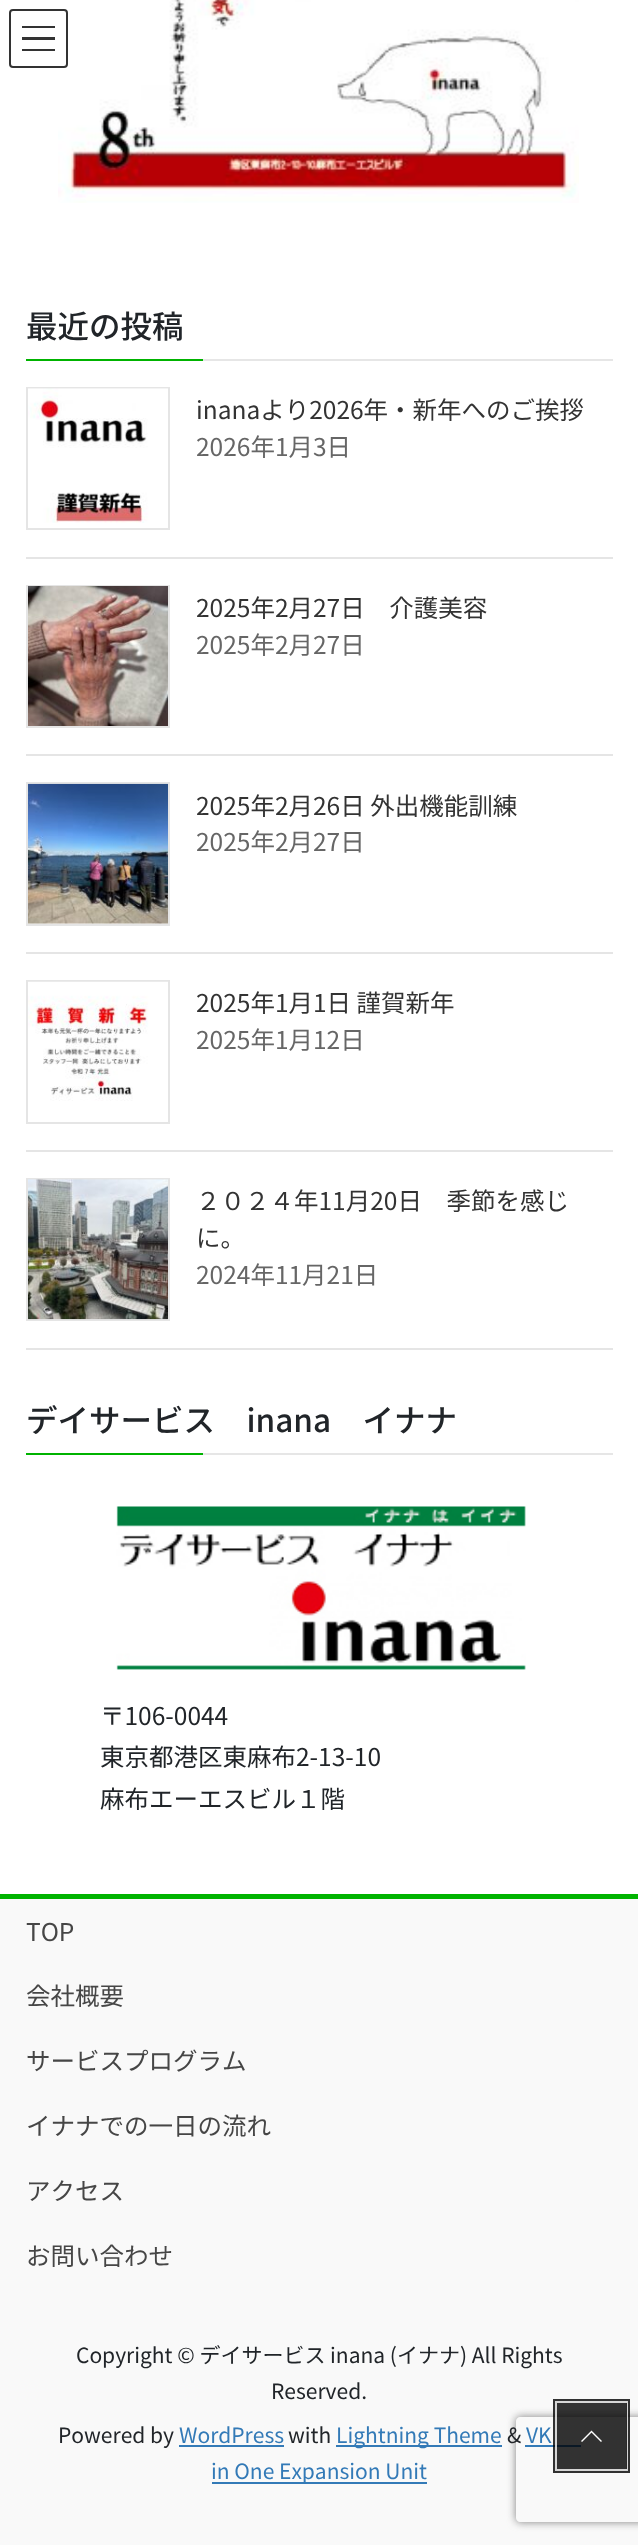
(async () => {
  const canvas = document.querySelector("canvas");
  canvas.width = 638;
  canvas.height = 2545;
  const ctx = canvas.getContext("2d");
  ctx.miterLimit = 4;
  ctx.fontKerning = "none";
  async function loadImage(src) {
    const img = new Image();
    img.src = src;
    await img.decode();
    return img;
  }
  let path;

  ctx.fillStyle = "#ffffff";
  ctx.fillRect(0, 0, 638, 2545);
  for (const [x, y, w, h, color] of [
    [22, 26, 33, 2, "#333333"],
    [22, 37, 33, 3, "#333333"],
    [22, 49, 33, 2, "#333333"],
  ]) {
    ctx.fillStyle = color;
    ctx.fillRect(x, y, w, h);
  }
  ctx.drawImage(await loadImage("img/1.png"), 58, 0, 521, 203);
  ctx.beginPath();
  ctx.roundRect(10, 10, 57, 57, 3);
  ctx.strokeStyle = "#333333";
  ctx.lineWidth = 2;
  ctx.stroke();
  for (const [x, y, w, h, color] of [
    [203, 359, 410, 2, "#e6e6e6"],
    [26, 359, 177, 2, "#00b300"],
    [26, 557, 587, 2, "#e5e5e5"],
  ]) {
    ctx.fillStyle = color;
    ctx.fillRect(x, y, w, h);
  }
  ctx.strokeStyle = "#e5e5e5";
  ctx.strokeRect(27, 388, 142, 141);
  ctx.drawImage(await loadImage("img/2.png"), 28, 388, 140, 135);
  ctx.fillRect(26, 754, 587, 2);
  ctx.strokeRect(27, 586, 142, 141);
  ctx.drawImage(await loadImage("img/3.png"), 28, 586, 140, 140);
  ctx.fillRect(26, 952, 587, 2);
  ctx.strokeRect(27, 783, 142, 142);
  ctx.drawImage(await loadImage("img/4.png"), 28, 783, 140, 141);
  ctx.fillRect(26, 1150, 587, 2);
  ctx.strokeRect(27, 981, 142, 142);
  ctx.drawImage(await loadImage("img/5.png"), 28, 981, 140, 120);
  ctx.fillRect(26, 1348, 587, 2);
  ctx.strokeRect(27, 1179, 142, 141);
  ctx.drawImage(await loadImage("img/6.png"), 28, 1179, 140, 141);
  ctx.fillStyle = "#e6e6e6";
  ctx.fillRect(203, 1453, 410, 2);
  ctx.fillStyle = "#00b300";
  ctx.fillRect(26, 1453, 177, 2);
  ctx.drawImage(await loadImage("img/7.png"), 116, 1506, 410, 164);
  for (const [x, y, w, h, color] of [
    [0, 1899, 638, 646, "#f9f9f9"],
    [0, 1894, 638, 5, "#00b300"],
    [179, 2445, 105, 2, "#337ab7"],
    [336, 2445, 166, 2, "#337ab7"],
    [525, 2445, 56, 2, "#337ab7"],
    [212, 2482, 215, 2, "#337ab7"],
  ]) {
    ctx.fillStyle = color;
    ctx.fillRect(x, y, w, h);
  }
  ctx.save();
  path = new Path2D("M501 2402H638V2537H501ZM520 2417H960C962 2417 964 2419 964 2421V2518C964 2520 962 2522 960 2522H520C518 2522 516 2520 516 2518V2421C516 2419 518 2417 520 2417Z");
  ctx.clip(path, "evenodd");
  ctx.fillStyle = "#808080";
  ctx.filter = "blur(4.5px)";
  ctx.beginPath();
  ctx.roundRect(516, 2417, 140, 105, 4);
  ctx.fill();
  ctx.filter = "none";
  ctx.restore();
  ctx.strokeStyle = "rgba(0, 0, 0, 0.8)";
  ctx.lineWidth = 4;
  ctx.strokeRect(555, 2401, 73, 70);
  ctx.strokeStyle = "rgba(255, 255, 255, 0.8)";
  ctx.lineWidth = 2;
  ctx.strokeRect(556, 2402, 71, 68);
  ctx.fillStyle = "rgba(0, 0, 0, 0.8)";
  ctx.fillRect(557, 2403, 70, 66);
  ctx.fillStyle = "#ffffff";
  path = new Path2D("M602 2441L601 2442L591.5 2432.5L582 2442L581 2441L591.5 2430.5Z");
  ctx.fill(path);
  ctx.font = "500 31.5px Noto Sans JP";
  ctx.fillStyle = "#212529";
  ctx.fillText("最近の投稿", 26, 338);
  ctx.font = "24.5px Noto Sans JP";
  ctx.fillStyle = "#333333";
  ctx.fillText("inanaより2026年・新年へのご挨拶", 196, 419);
  ctx.fillStyle = "#666666";
  ctx.fillText("2026年1月3日", 196, 456);
  ctx.fillStyle = "#333333";
  ctx.fillText("2025年2月27日　介護美容", 196, 617);
  ctx.fillStyle = "#666666";
  ctx.fillText("2025年2月27日", 196, 654);
  ctx.fillStyle = "#333333";
  ctx.fillText("2025年2月26日 外出機能訓練", 196, 815);
  ctx.fillStyle = "#666666";
  ctx.fillText("2025年2月27日", 196, 851);
  ctx.fillStyle = "#333333";
  ctx.fillText("2025年1月1日 謹賀新年", 196, 1012);
  ctx.fillStyle = "#666666";
  ctx.fillText("2025年1月12日", 196, 1049);
  ctx.fillStyle = "#333333";
  ctx.fillText("２０２４年11月20日　季節を感じ", 196, 1210);
  ctx.fillText("に。", 196, 1247);
  ctx.fillStyle = "#666666";
  ctx.fillText("2024年11月21日", 196, 1284);
  ctx.font = "500 31.5px Noto Sans JP";
  ctx.fillStyle = "#212529";
  ctx.fillText("デイサービス　inana　イナナ", 26, 1432);
  ctx.font = "24.5px Noto Sans JP";
  for (const [text, x, y] of [
    ["〒106-0044", 100, 1725],
    ["東京都港区東麻布2-13-10", 100, 1766],
    ["麻布エーエスビル１階", 100, 1808],
  ]) {
    ctx.fillText(text, x, y);
  }
  ctx.fillStyle = "#464646";
  for (const [text, x, y] of [
    ["TOP", 26, 1941],
    ["会社概要", 26, 2005],
    ["サービスプログラム", 26, 2070],
    ["イナナでの一日の流れ", 26, 2135],
    ["アクセス", 26, 2200],
    ["お問い合わせ", 26, 2265],
  ]) {
    ctx.fillText(text, x, y);
  }
  ctx.font = "21px Noto Sans JP";
  ctx.fillStyle = "#212529";
  for (const [text, x, y] of [
    ["Copyright © デイサービス inana (イナナ) All Rights", 76, 2363],
    ["Reserved.", 271, 2399],
    ["Powered by", 58, 2443],
  ]) {
    ctx.fillText(text, x, y);
  }
  ctx.fillStyle = "#337ab7";
  ctx.fillText("WordPress", 179, 2443);
  ctx.fillStyle = "#212529";
  ctx.fillText("with", 288, 2443);
  ctx.fillStyle = "#337ab7";
  ctx.fillText("Lightning Theme", 336, 2443);
  ctx.fillStyle = "#212529";
  ctx.fillText("&", 507, 2443);
  ctx.fillStyle = "#337ab7";
  ctx.fillText("VK", 526, 2443);
  ctx.fillText("in One Expansion Unit", 211, 2479);
})();
